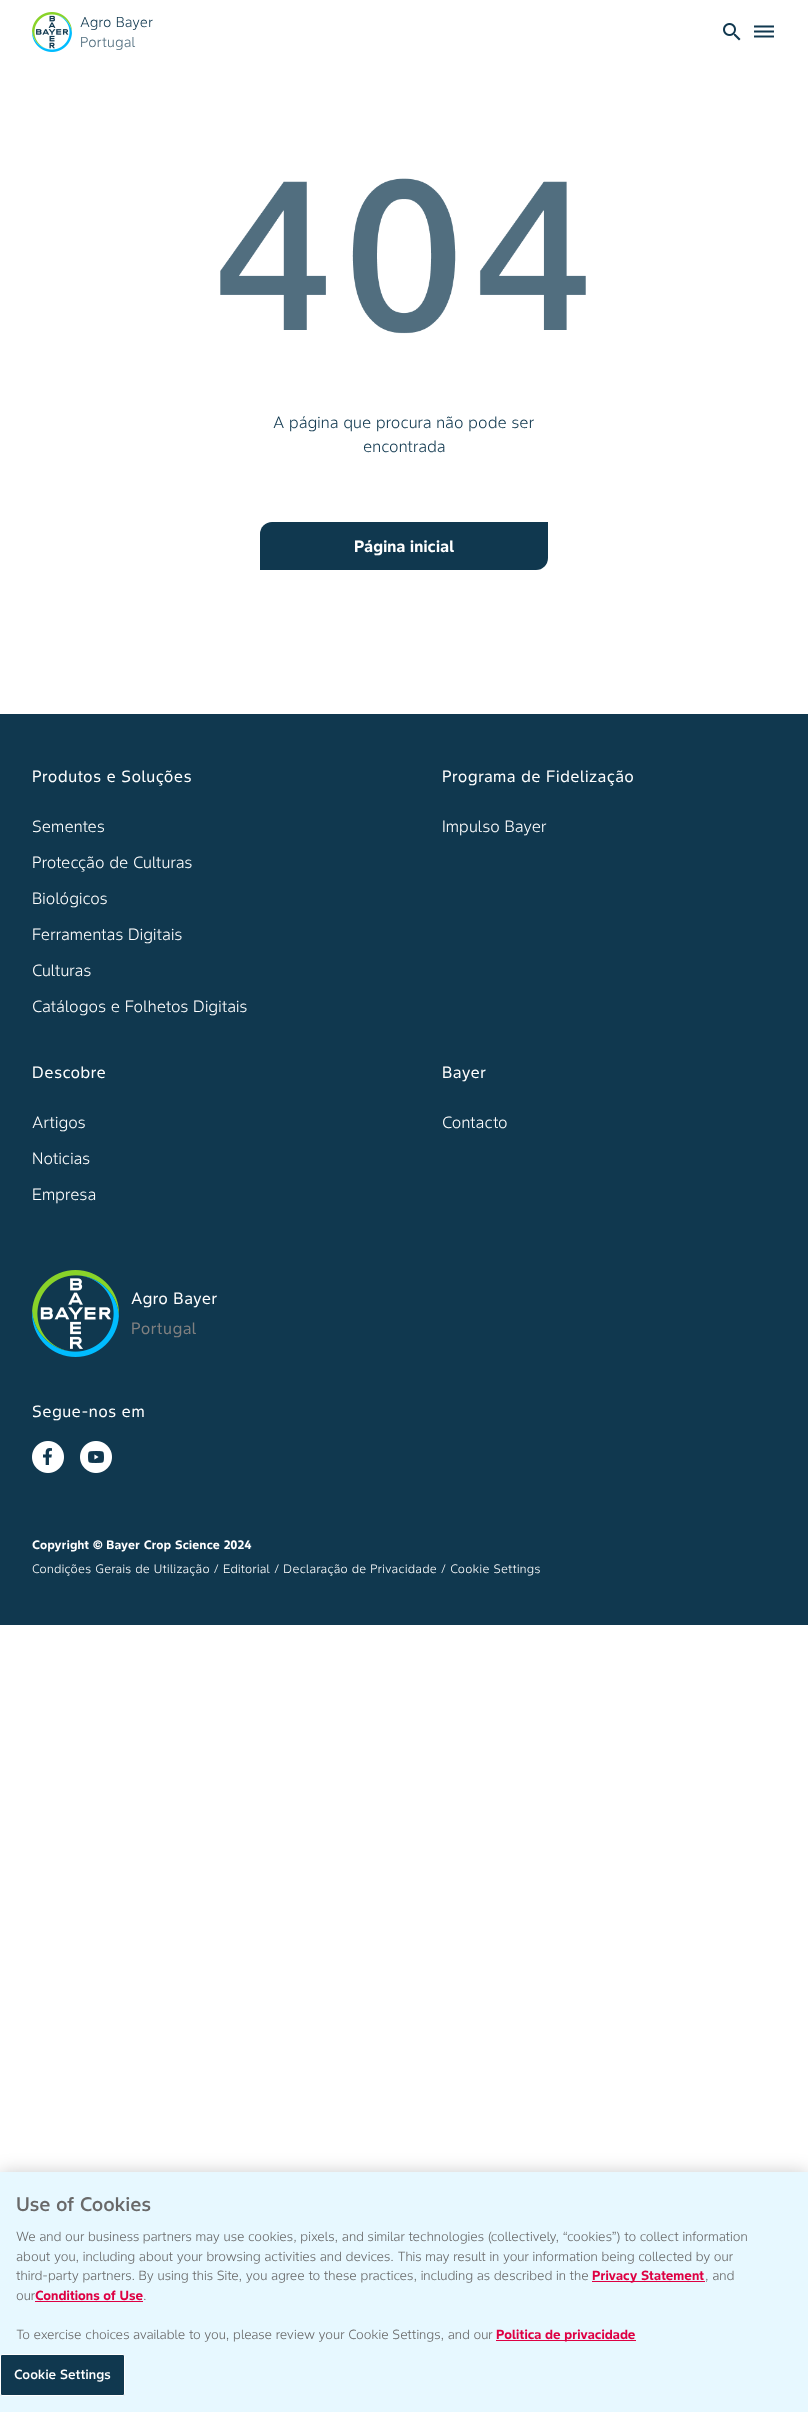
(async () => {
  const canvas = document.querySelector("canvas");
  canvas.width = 808;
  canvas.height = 2412;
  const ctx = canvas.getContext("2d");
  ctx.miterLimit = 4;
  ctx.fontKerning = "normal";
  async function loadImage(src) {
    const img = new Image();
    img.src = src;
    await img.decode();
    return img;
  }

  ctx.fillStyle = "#ffffff";
  ctx.fillRect(0, 0, 808, 2412);
  ctx.drawImage(await loadImage("img/1.png"), 32, 12, 40, 40);
  ctx.drawImage(await loadImage("img/2.png"), 723, 23, 18, 18);
  ctx.drawImage(await loadImage("img/3.png"), 754, 25, 20, 13);
  ctx.drawImage(await loadImage("img/4.png"), 220, 178, 366, 156);
  ctx.fillStyle = "#10384f";
  ctx.beginPath();
  ctx.roundRect(260, 522, 288, 48, [12, 0, 12, 0]);
  ctx.fill();
  ctx.fillRect(0, 714, 808, 911);
  ctx.drawImage(await loadImage("img/5.png"), 32, 1270, 87, 87);
  ctx.drawImage(await loadImage("img/6.png"), 32, 1441, 32, 32);
  ctx.drawImage(await loadImage("img/7.png"), 80, 1441, 32, 32);
  ctx.fillStyle = "rgba(0, 0, 0, 0.2)";
  ctx.filter = "blur(9px)";
  ctx.beginPath();
  ctx.rect(0, 2172, 808, 240);
  ctx.fill();
  ctx.filter = "none";
  for (const [x, y, w, h, color] of [
    [0, 2172, 808, 240, "#e7f8ff"],
    [592, 2281, 113, 1, "#de0043"],
    [35, 2301, 108, 1, "#de0043"],
    [496, 2340, 140, 1, "#de0043"],
  ]) {
    ctx.fillStyle = color;
    ctx.fillRect(x, y, w, h);
  }
  ctx.fillStyle = "#10384f";
  ctx.beginPath();
  ctx.roundRect(0.5, 2354.5, 124, 41, 1.5);
  ctx.fill();
  ctx.strokeStyle = "#ffffff";
  ctx.stroke();
  ctx.letterSpacing = "0.25px";
  ctx.font = "300 14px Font";
  ctx.fillText("Agro Bayer", 80, 27);
  ctx.fillStyle = "#516e7f";
  ctx.fillText("Portugal", 80, 47);
  ctx.letterSpacing = "0.15px";
  ctx.font = "300 16px Font";
  ctx.fillStyle = "#10384f";
  ctx.fillText("A página que procura não pode ser", 273, 428);
  ctx.fillText("encontrada", 363, 452);
  ctx.font = "bold 16px Font";
  ctx.fillStyle = "#ffffff";
  ctx.fillText("Página inicial", 354, 552);
  ctx.letterSpacing = "0.5px";
  ctx.font = "16px Font";
  ctx.fillText("Produtos e Soluções", 32, 782);
  ctx.letterSpacing = "0.15px";
  ctx.font = "300 16px Font";
  for (const [text, x, y] of [
    ["Sementes", 32, 832],
    ["Protecção de Culturas", 32, 868],
    ["Biológicos", 32, 904],
    ["Ferramentas Digitais", 32, 940],
    ["Culturas", 32, 976],
    ["Catálogos e Folhetos Digitais", 32, 1012],
  ]) {
    ctx.fillText(text, x, y);
  }
  ctx.letterSpacing = "0.5px";
  ctx.font = "16px Font";
  ctx.fillText("Programa de Fidelização", 442, 782);
  ctx.letterSpacing = "0.15px";
  ctx.font = "300 16px Font";
  ctx.fillText("Impulso Bayer", 442, 832);
  ctx.letterSpacing = "0.5px";
  ctx.font = "16px Font";
  ctx.fillText("Descobre", 32, 1078);
  ctx.letterSpacing = "0.15px";
  ctx.font = "300 16px Font";
  for (const [text, x, y] of [
    ["Artigos", 32, 1128],
    ["Noticias", 32, 1164],
    ["Empresa", 32, 1200],
  ]) {
    ctx.fillText(text, x, y);
  }
  ctx.letterSpacing = "0.5px";
  ctx.font = "16px Font";
  ctx.fillText("Bayer", 442, 1078);
  ctx.letterSpacing = "0.15px";
  ctx.font = "300 16px Font";
  ctx.fillText("Contacto", 442, 1128);
  ctx.letterSpacing = "0.5px";
  ctx.font = "16px Font";
  ctx.fillText("Agro Bayer", 131, 1304);
  ctx.fillStyle = "#808080";
  ctx.fillText("Portugal", 131, 1334);
  ctx.fillStyle = "#ffffff";
  ctx.fillText("Segue-nos em", 32, 1417);
  ctx.letterSpacing = "0.25px";
  ctx.font = "bold 12px Font";
  ctx.fillText("Copyright © Bayer Crop Science 2024", 32, 1549);
  ctx.letterSpacing = "0.35px";
  ctx.font = "300 12px Font";
  ctx.fillText("Condições Gerais de Utilização / Editorial / Declaração de Privacidade / Cookie Settings", 32, 1573);
  ctx.letterSpacing = "0px";
  ctx.font = "500 19.25px Font";
  ctx.fillStyle = "#696969";
  ctx.fillText("Use of Cookies", 16, 2211);
  ctx.font = "300 13px Font";
  for (const [text, x, y] of [
    ["We and our business partners may use cookies, pixels, and similar technologies (collectively, “cookies”) to collect information", 16, 2241],
    ["about you, including about your browsing activities and devices. This may result in your information being collected by our", 16, 2261],
    ["third-party partners. By using this Site, you agree to these practices, including as described in the", 16, 2280],
  ]) {
    ctx.fillText(text, x, y);
  }
  ctx.font = "bold 13px Font";
  ctx.fillStyle = "#de0043";
  ctx.fillText("Privacy Statement", 592, 2280);
  ctx.font = "300 13px Font";
  ctx.fillStyle = "#696969";
  ctx.fillText(", and", 705, 2280);
  ctx.fillText("our", 16, 2300);
  ctx.font = "bold 13px Font";
  ctx.fillStyle = "#de0043";
  ctx.fillText("Conditions of Use", 35, 2300);
  ctx.font = "300 13px Font";
  ctx.fillStyle = "#696969";
  ctx.fillText(".", 143, 2300);
  ctx.fillText("To exercise choices available to you, please review your Cookie Settings, and our", 16, 2339);
  ctx.font = "bold 13px Font";
  ctx.fillStyle = "#de0043";
  ctx.fillText("Politica de privacidade", 496, 2339);
  ctx.letterSpacing = "0.1px";
  ctx.font = "500 13px Font";
  ctx.fillStyle = "#ffffff";
  ctx.fillText("Cookie Settings", 14, 2379);
})();
